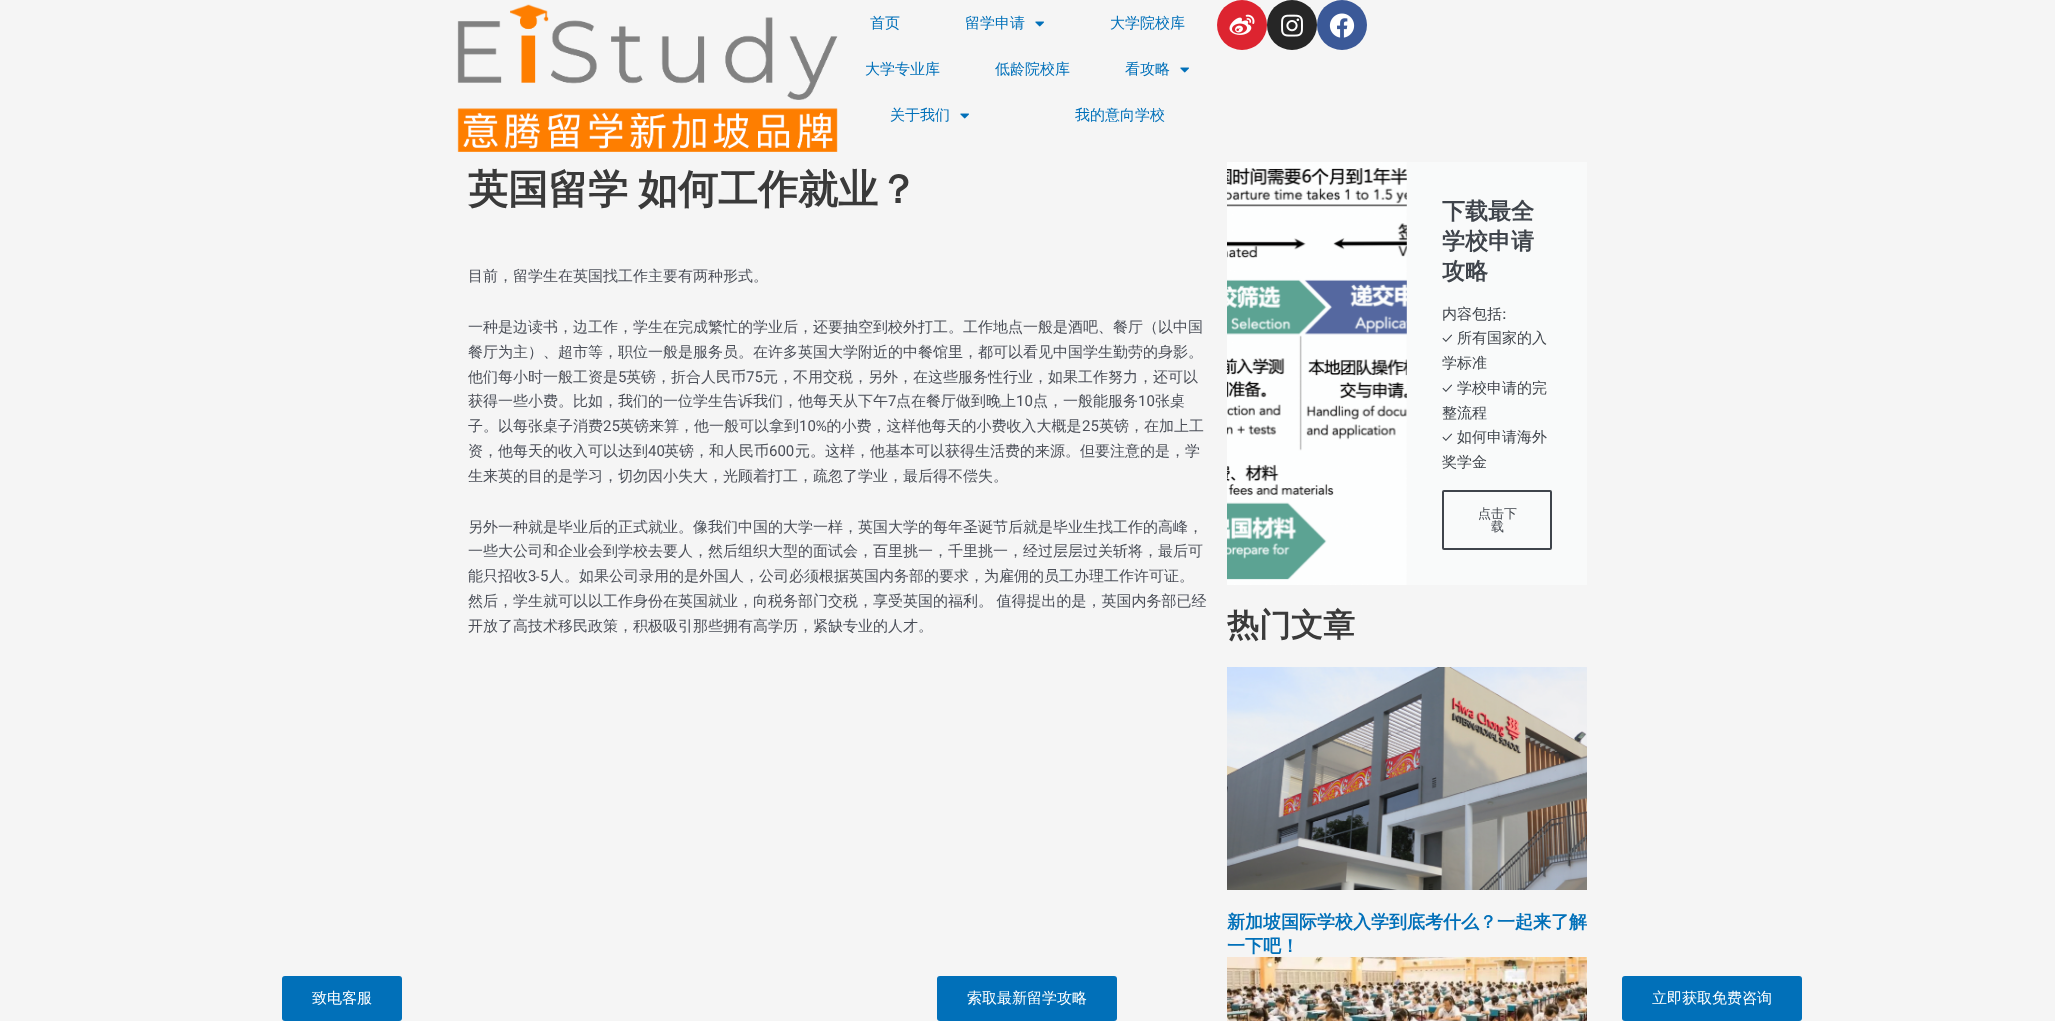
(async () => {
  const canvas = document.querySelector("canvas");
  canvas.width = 2055;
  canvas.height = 1021;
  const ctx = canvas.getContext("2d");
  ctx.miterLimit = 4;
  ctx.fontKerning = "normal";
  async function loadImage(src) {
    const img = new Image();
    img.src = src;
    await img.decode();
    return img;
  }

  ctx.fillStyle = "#f5f5f5";
  ctx.fillRect(0, 0, 2055, 1021);
  ctx.drawImage(await loadImage("img/1.png"), 457, 4, 381, 148);
  ctx.drawImage(await loadImage("img/2.png"), 1035, 21, 9, 6);
  ctx.drawImage(await loadImage("img/2.png"), 1180, 67, 9, 6);
  ctx.drawImage(await loadImage("img/2.png"), 960, 113, 9, 6);
  ctx.fillStyle = "#dd2430";
  ctx.beginPath();
  ctx.arc(1242, 25, 25, 0, Math.PI * 2);
  ctx.fill();
  ctx.drawImage(await loadImage("img/3.png"), 1229, 14, 26, 21);
  ctx.fillStyle = "#262626";
  ctx.beginPath();
  ctx.arc(1292, 25, 25, 0, Math.PI * 2);
  ctx.fill();
  ctx.drawImage(await loadImage("img/4.png"), 1281, 14, 22, 23);
  ctx.fillStyle = "#3b5998";
  ctx.beginPath();
  ctx.arc(1342, 25, 25, 0, Math.PI * 2);
  ctx.fill();
  ctx.drawImage(await loadImage("img/5.png"), 1329, 13, 26, 25);
  ctx.drawImage(await loadImage("img/6.png"), 1227, 162, 180, 423);
  ctx.fillStyle = "#f9fafa";
  ctx.fillRect(1407, 162, 180, 423);
  ctx.beginPath();
  ctx.roundRect(1443, 491, 108, 58, 1);
  ctx.strokeStyle = "#3f444b";
  ctx.lineWidth = 2;
  ctx.stroke();
  ctx.drawImage(await loadImage("img/7.png"), 1227, 667, 360, 223);
  ctx.drawImage(await loadImage("img/8.png"), 1227, 957, 360, 64);
  ctx.fillStyle = "#0170b9";
  ctx.beginPath();
  ctx.roundRect(282, 976, 120, 45, 3);
  ctx.fill();
  ctx.beginPath();
  ctx.roundRect(937, 976, 180, 45, 3);
  ctx.fill();
  ctx.beginPath();
  ctx.roundRect(1622, 976, 180, 45, 3);
  ctx.fill();
  ctx.font = "500 15px WenQuanYi Zen Hei";
  for (const [text, x, y] of [
    ["首页", 870, 28],
    ["留学申请", 965, 28],
    ["大学院校库", 1110, 28],
    ["大学专业库", 865, 74],
    ["低龄院校库", 995, 74],
    ["看攻略", 1125, 74],
    ["关于我们", 890, 120],
    ["我的意向学校", 1075, 120],
  ]) {
    ctx.fillText(text, x, y);
  }
  ctx.wordSpacing = "-2px";
  ctx.font = "bold 40px WenQuanYi Zen Hei";
  ctx.fillStyle = "#3a3a3a";
  ctx.fillText("英国留学 如何工作就业？", 468, 203);
  ctx.wordSpacing = "0px";
  ctx.font = "500 15px WenQuanYi Zen Hei";
  ctx.fillStyle = "#4b4f58";
  for (const [text, x, y] of [
    ["目前，留学生在英国找工作主要有两种形式。", 468, 281],
    ["一种是边读书，边工作，学生在完成繁忙的学业后，还要抽空到校外打工。工作地点一般是酒吧、餐厅（以中国", 468, 332],
    ["餐厅为主）、超市等，职位一般是服务员。在许多英国大学附近的中餐馆里，都可以看见中国学生勤劳的身影。", 468, 357],
    ["他们每小时一般工资是", 468, 382],
  ]) {
    ctx.fillText(text, x, y);
  }
  ctx.font = "15px Roboto";
  ctx.fillText("5", 618, 382);
  ctx.font = "500 15px WenQuanYi Zen Hei";
  ctx.fillText("英镑，折合人民币", 626, 382);
  ctx.font = "15px Roboto";
  ctx.fillText("75", 746, 382);
  ctx.font = "500 15px WenQuanYi Zen Hei";
  ctx.fillText("元，不用交税，另外，在这些服务性行业，如果工作努力，还可以", 763, 382);
  ctx.fillText("获得一些小费。比如，我们的一位学生告诉我们，他每天从下午", 468, 406);
  ctx.font = "15px Roboto";
  ctx.fillText("7", 888, 406);
  ctx.font = "500 15px WenQuanYi Zen Hei";
  ctx.fillText("点在餐厅做到晚上", 896, 406);
  ctx.font = "15px Roboto";
  ctx.fillText("10", 1016, 406);
  ctx.font = "500 15px WenQuanYi Zen Hei";
  ctx.fillText("点，一般能服务", 1033, 406);
  ctx.font = "15px Roboto";
  ctx.fillText("10", 1138, 406);
  ctx.font = "500 15px WenQuanYi Zen Hei";
  ctx.fillText("张桌", 1155, 406);
  ctx.fillText("子。以每张桌子消费", 468, 431);
  ctx.font = "15px Roboto";
  ctx.fillText("25", 603, 431);
  ctx.font = "500 15px WenQuanYi Zen Hei";
  ctx.fillText("英镑来算，他一般可以拿到", 619, 431);
  ctx.font = "15px Roboto";
  ctx.fillText("10", 799, 431);
  ctx.font = "500 15px WenQuanYi Zen Hei";
  ctx.fillText("%的小费，这样他每天的小费收入大概是", 816, 431);
  ctx.font = "15px Roboto";
  ctx.fillText("25", 1082, 431);
  ctx.font = "500 15px WenQuanYi Zen Hei";
  ctx.fillText("英镑，在加上工", 1099, 431);
  ctx.fillText("资，他每天的收入可以达到", 468, 456);
  ctx.font = "15px Roboto";
  ctx.fillText("40", 648, 456);
  ctx.font = "500 15px WenQuanYi Zen Hei";
  ctx.fillText("英镑，和人民币", 664, 456);
  ctx.font = "15px Roboto";
  ctx.fillText("600", 769, 456);
  ctx.font = "500 15px WenQuanYi Zen Hei";
  for (const [text, x, y] of [
    ["元。这样，他基本可以获得生活费的来源。但要注意的是，学", 795, 456],
    ["生来英的目的是学习，切勿因小失大，光顾着打工，疏忽了学业，最后得不偿失。", 468, 481],
    ["另外一种就是毕业后的正式就业。像我们中国的大学一样，英国大学的每年圣诞节后就是毕业生找工作的高峰，", 468, 532],
    ["一些大公司和企业会到学校去要人，然后组织大型的面试会，百里挑一，千里挑一，经过层层过关斩将，最后可", 468, 556],
    ["能只招收", 468, 581],
  ]) {
    ctx.fillText(text, x, y);
  }
  ctx.font = "15px Roboto";
  ctx.fillText("3", 528, 581);
  ctx.font = "500 15px WenQuanYi Zen Hei";
  ctx.fillText("-", 536, 581);
  ctx.font = "15px Roboto";
  ctx.fillText("5", 540, 581);
  ctx.font = "500 15px WenQuanYi Zen Hei";
  ctx.fillText("人。如果公司录用的是外国人，公司必须根据英国内务部的要求，为雇佣的员工办理工作许可证。", 549, 581);
  ctx.wordSpacing = "-1px";
  ctx.fillText("然后，学生就可以以工作身份在英国就业，向税务部门交税，享受英国的福利。 值得提出的是，英国内务部已经", 468, 606);
  ctx.wordSpacing = "0px";
  ctx.fillText("开放了高技术移民政策，积极吸引那些拥有高学历，紧缺专业的人才。", 468, 631);
  ctx.font = "bold 23px WenQuanYi Zen Hei";
  ctx.fillStyle = "#3f444b";
  for (const [text, x, y] of [
    ["下载最全", 1442, 219],
    ["学校申请", 1442, 249],
    ["攻略", 1442, 279],
  ]) {
    ctx.fillText(text, x, y);
  }
  ctx.font = "500 15px WenQuanYi Zen Hei";
  ctx.fillText("内容包括:", 1442, 319);
  ctx.font = "15px Ubuntu";
  ctx.fillText("✓", 1442, 343);
  ctx.font = "500 15px WenQuanYi Zen Hei";
  ctx.fillText("所有国家的入", 1457, 343);
  ctx.fillText("学标准", 1442, 368);
  ctx.font = "15px Ubuntu";
  ctx.fillText("✓", 1442, 393);
  ctx.font = "500 15px WenQuanYi Zen Hei";
  ctx.fillText("学校申请的完", 1457, 393);
  ctx.fillText("整流程", 1442, 418);
  ctx.font = "15px Ubuntu";
  ctx.fillText("✓", 1442, 442);
  ctx.font = "500 15px WenQuanYi Zen Hei";
  ctx.fillText("如何申请海外", 1457, 442);
  ctx.fillText("奖学金", 1442, 467);
  ctx.font = "500 13px WenQuanYi Zen Hei";
  ctx.fillText("点击下", 1478, 518);
  ctx.fillText("载", 1491, 531);
  ctx.font = "bold 32px WenQuanYi Zen Hei";
  ctx.fillStyle = "#3a3a3a";
  ctx.fillText("热门文章", 1227, 636);
  ctx.font = "bold 18px WenQuanYi Zen Hei";
  ctx.fillStyle = "#0170b9";
  ctx.fillText("新加坡国际学校入学到底考什么？一起来了解", 1227, 928);
  ctx.fillText("一下吧！", 1227, 952);
  ctx.font = "500 15px WenQuanYi Zen Hei";
  ctx.fillStyle = "#ffffff";
  for (const [text, x, y] of [
    ["致电客服", 312, 1003],
    ["索取最新留学攻略", 967, 1003],
    ["立即获取免费咨询", 1652, 1003],
  ]) {
    ctx.fillText(text, x, y);
  }
})();
